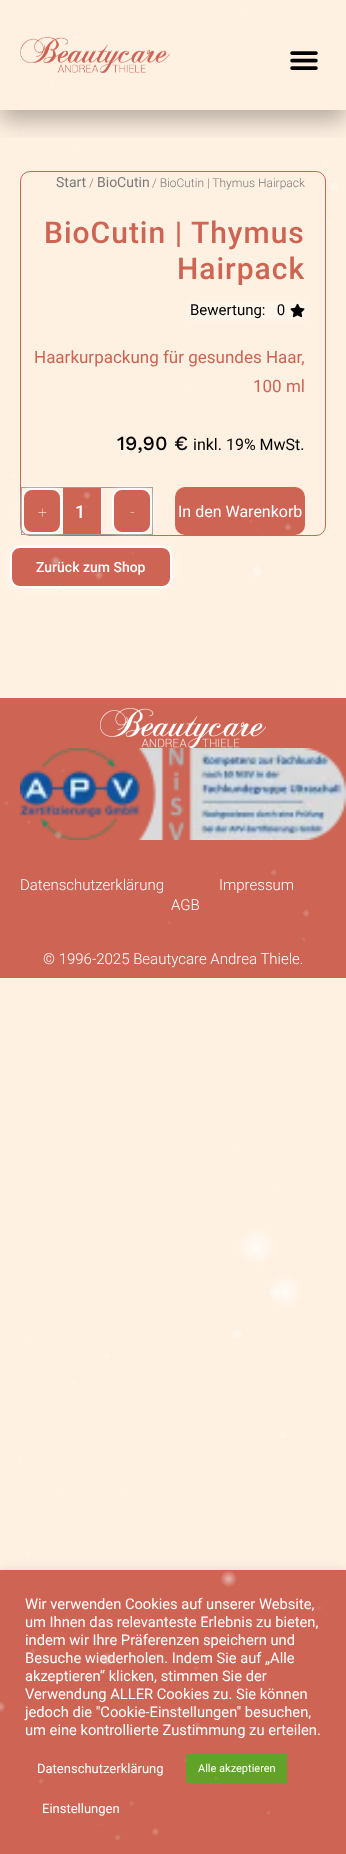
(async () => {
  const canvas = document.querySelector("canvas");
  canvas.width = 346;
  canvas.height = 1854;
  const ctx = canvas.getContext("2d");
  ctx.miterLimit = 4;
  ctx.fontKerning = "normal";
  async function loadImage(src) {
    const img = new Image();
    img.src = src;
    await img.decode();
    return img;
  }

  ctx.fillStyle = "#fff1e2";
  ctx.fillRect(0, 0, 346, 1854);
  ctx.fillStyle = "#eae3dc";
  ctx.fillRect(20, 130, 1, 1);
  ctx.save();
  ctx.beginPath();
  ctx.rect(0, 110, 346, 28);
  ctx.clip();
  ctx.fillStyle = "rgba(0, 0, 0, 0.3)";
  ctx.filter = "blur(12px)";
  ctx.beginPath();
  ctx.rect(0, 10, 346, 110);
  ctx.fill();
  ctx.filter = "none";
  ctx.restore();
  ctx.drawImage(await loadImage("img/1.png"), 20, 36, 150, 37);
  ctx.drawImage(await loadImage("img/2.png"), 290, 51, 28, 19);
  ctx.beginPath();
  ctx.roundRect(20.5, 171.5, 305, 364, 9.5);
  ctx.strokeStyle = "#cd6454";
  ctx.stroke();
  ctx.fillStyle = "rgba(255, 255, 255, 0.5)";
  ctx.filter = "blur(5px)";
  ctx.beginPath();
  ctx.rect(190, 303, 115, 15);
  ctx.fill();
  ctx.filter = "none";
  ctx.fillStyle = "#fff5ea";
  ctx.fillRect(190, 303, 115, 15);
  ctx.drawImage(await loadImage("img/4.png"), 290, 303, 15, 15);
  ctx.strokeStyle = "#9c9c9c";
  ctx.strokeRect(21.5, 487.5, 131, 47);
  ctx.fillStyle = "rgba(255, 255, 255, 0.5)";
  ctx.filter = "blur(5px)";
  ctx.beginPath();
  ctx.roundRect(22, 488, 40, 46, 10);
  ctx.fill();
  ctx.filter = "none";
  ctx.fillStyle = "#cd6454";
  ctx.beginPath();
  ctx.roundRect(23, 489, 38, 44, 9);
  ctx.fill();
  ctx.strokeStyle = "#ffffff";
  ctx.lineWidth = 2;
  ctx.stroke();
  for (const [x, y, w, h, color] of [
    [63, 488, 38, 46, "#cd6454"],
    [101, 488, 1, 46, "#ffffff"],
    [62, 488, 1, 46, "#ffffff"],
  ]) {
    ctx.fillStyle = color;
    ctx.fillRect(x, y, w, h);
  }
  ctx.fillStyle = "rgba(255, 255, 255, 0.5)";
  ctx.filter = "blur(5px)";
  ctx.beginPath();
  ctx.roundRect(112, 488, 40, 46, 10);
  ctx.fill();
  ctx.filter = "none";
  ctx.fillStyle = "#cd6454";
  ctx.beginPath();
  ctx.roundRect(113, 489, 38, 44, 9);
  ctx.fill();
  ctx.stroke();
  ctx.beginPath();
  ctx.roundRect(175, 487, 130, 48, 10);
  ctx.fill();
  ctx.fillStyle = "rgba(255, 255, 255, 0.5)";
  ctx.filter = "blur(5px)";
  ctx.beginPath();
  ctx.roundRect(10, 546, 162, 42, 10);
  ctx.fill();
  ctx.filter = "none";
  ctx.fillStyle = "#cd6454";
  ctx.beginPath();
  ctx.roundRect(11, 547, 160, 40, 9);
  ctx.fill();
  ctx.stroke();
  ctx.fillRect(0, 698, 346, 280);
  ctx.drawImage(await loadImage("img/5.png"), 100, 708, 166, 40);
  ctx.drawImage(await loadImage("img/6.png"), 20, 748, 326, 92);
  ctx.fillStyle = "rgba(172, 171, 171, 0.3)";
  ctx.filter = "blur(5px)";
  ctx.beginPath();
  ctx.rect(0, 1569, 346, 284);
  ctx.fill();
  ctx.filter = "none";
  ctx.fillStyle = "#cd6454";
  ctx.fillRect(0, 1570, 346, 284);
  ctx.fillStyle = "#61a229";
  ctx.fillRect(186, 1754, 101, 29);
  ctx.font = "14px Roboto";
  ctx.fillStyle = "#7a7a7a";
  ctx.fillText("Start", 56, 187);
  ctx.font = "300 12px Roboto";
  ctx.fillText("/", 89, 187);
  ctx.font = "14px Roboto";
  ctx.fillText("BioCutin", 97, 187);
  ctx.font = "300 12px Roboto";
  ctx.fillText("/ BioCutin | Thymus Hairpack", 152, 187);
  ctx.letterSpacing = "1px";
  ctx.font = "500 30px Roboto";
  ctx.fillStyle = "#cd6454";
  ctx.fillText("BioCutin | Thymus", 44, 243);
  ctx.fillText("Hairpack", 177, 279);
  ctx.letterSpacing = "0px";
  ctx.font = "15px Roboto";
  ctx.fillStyle = "#020101";
  ctx.fillText("Bewertung:   0", 190, 315);
  ctx.font = "17px Roboto";
  ctx.fillStyle = "#cd6454";
  ctx.fillText("Haarkurpackung für gesundes Haar,", 34, 363);
  ctx.fillText("100 ml", 253, 392);
  ctx.font = "500 20px Work Sans";
  ctx.fillStyle = "#020101";
  ctx.fillText("19,90 €", 117, 450);
  ctx.font = "16px Roboto";
  ctx.fillText("inkl. 19% MwSt.", 193, 450);
  ctx.font = "100 16px Roboto";
  ctx.fillStyle = "#ffffff";
  ctx.fillText("+", 38, 518);
  ctx.font = "500 18px Roboto";
  ctx.fillText("1", 75, 518);
  ctx.font = "100 16px Roboto";
  ctx.fillText("-", 130, 518);
  ctx.font = "16px Roboto";
  ctx.fillText("In den Warenkorb", 178, 517);
  ctx.font = "500 14px Roboto";
  ctx.fillText("Zurück zum Shop", 36, 572);
  ctx.font = "300 15px Roboto";
  for (const [text, x, y] of [
    ["Datenschutzerklärung", 20, 890],
    ["Impressum", 219, 890],
    ["AGB", 171, 910],
    ["© 1996-2025 Beautycare Andrea Thiele.", 43, 964],
  ]) {
    ctx.fillText(text, x, y);
  }
  ctx.font = "14.7px Roboto";
  for (const [text, x, y] of [
    ["Wir verwenden Cookies auf unserer Website,", 25, 1609],
    ["um Ihnen das relevanteste Erlebnis zu bieten,", 25, 1627],
    ["indem wir Ihre Präferenzen speichern und", 25, 1645],
    ["Besuche wiederholen. Indem Sie auf „Alle", 25, 1663],
    ["akzeptieren“ klicken, stimmen Sie der", 25, 1681],
    ["Verwendung ALLER Cookies zu. Sie können", 25, 1699],
    ["jedoch die \"Cookie-Einstellungen\" besuchen,", 25, 1717],
    ["um eine kontrollierte Zustimmung zu erteilen.", 25, 1735],
  ]) {
    ctx.fillText(text, x, y);
  }
  ctx.font = "13px Roboto";
  ctx.fillText("Datenschutzerklärung", 37, 1773);
  ctx.font = "11px Roboto";
  ctx.fillText("Alle akzeptieren", 198, 1772);
  ctx.font = "13px Roboto";
  ctx.fillText("Einstellungen", 42, 1813);
  ctx.drawImage(await loadImage("img/3.png"), 0, 14, 340, 1827);
})();
